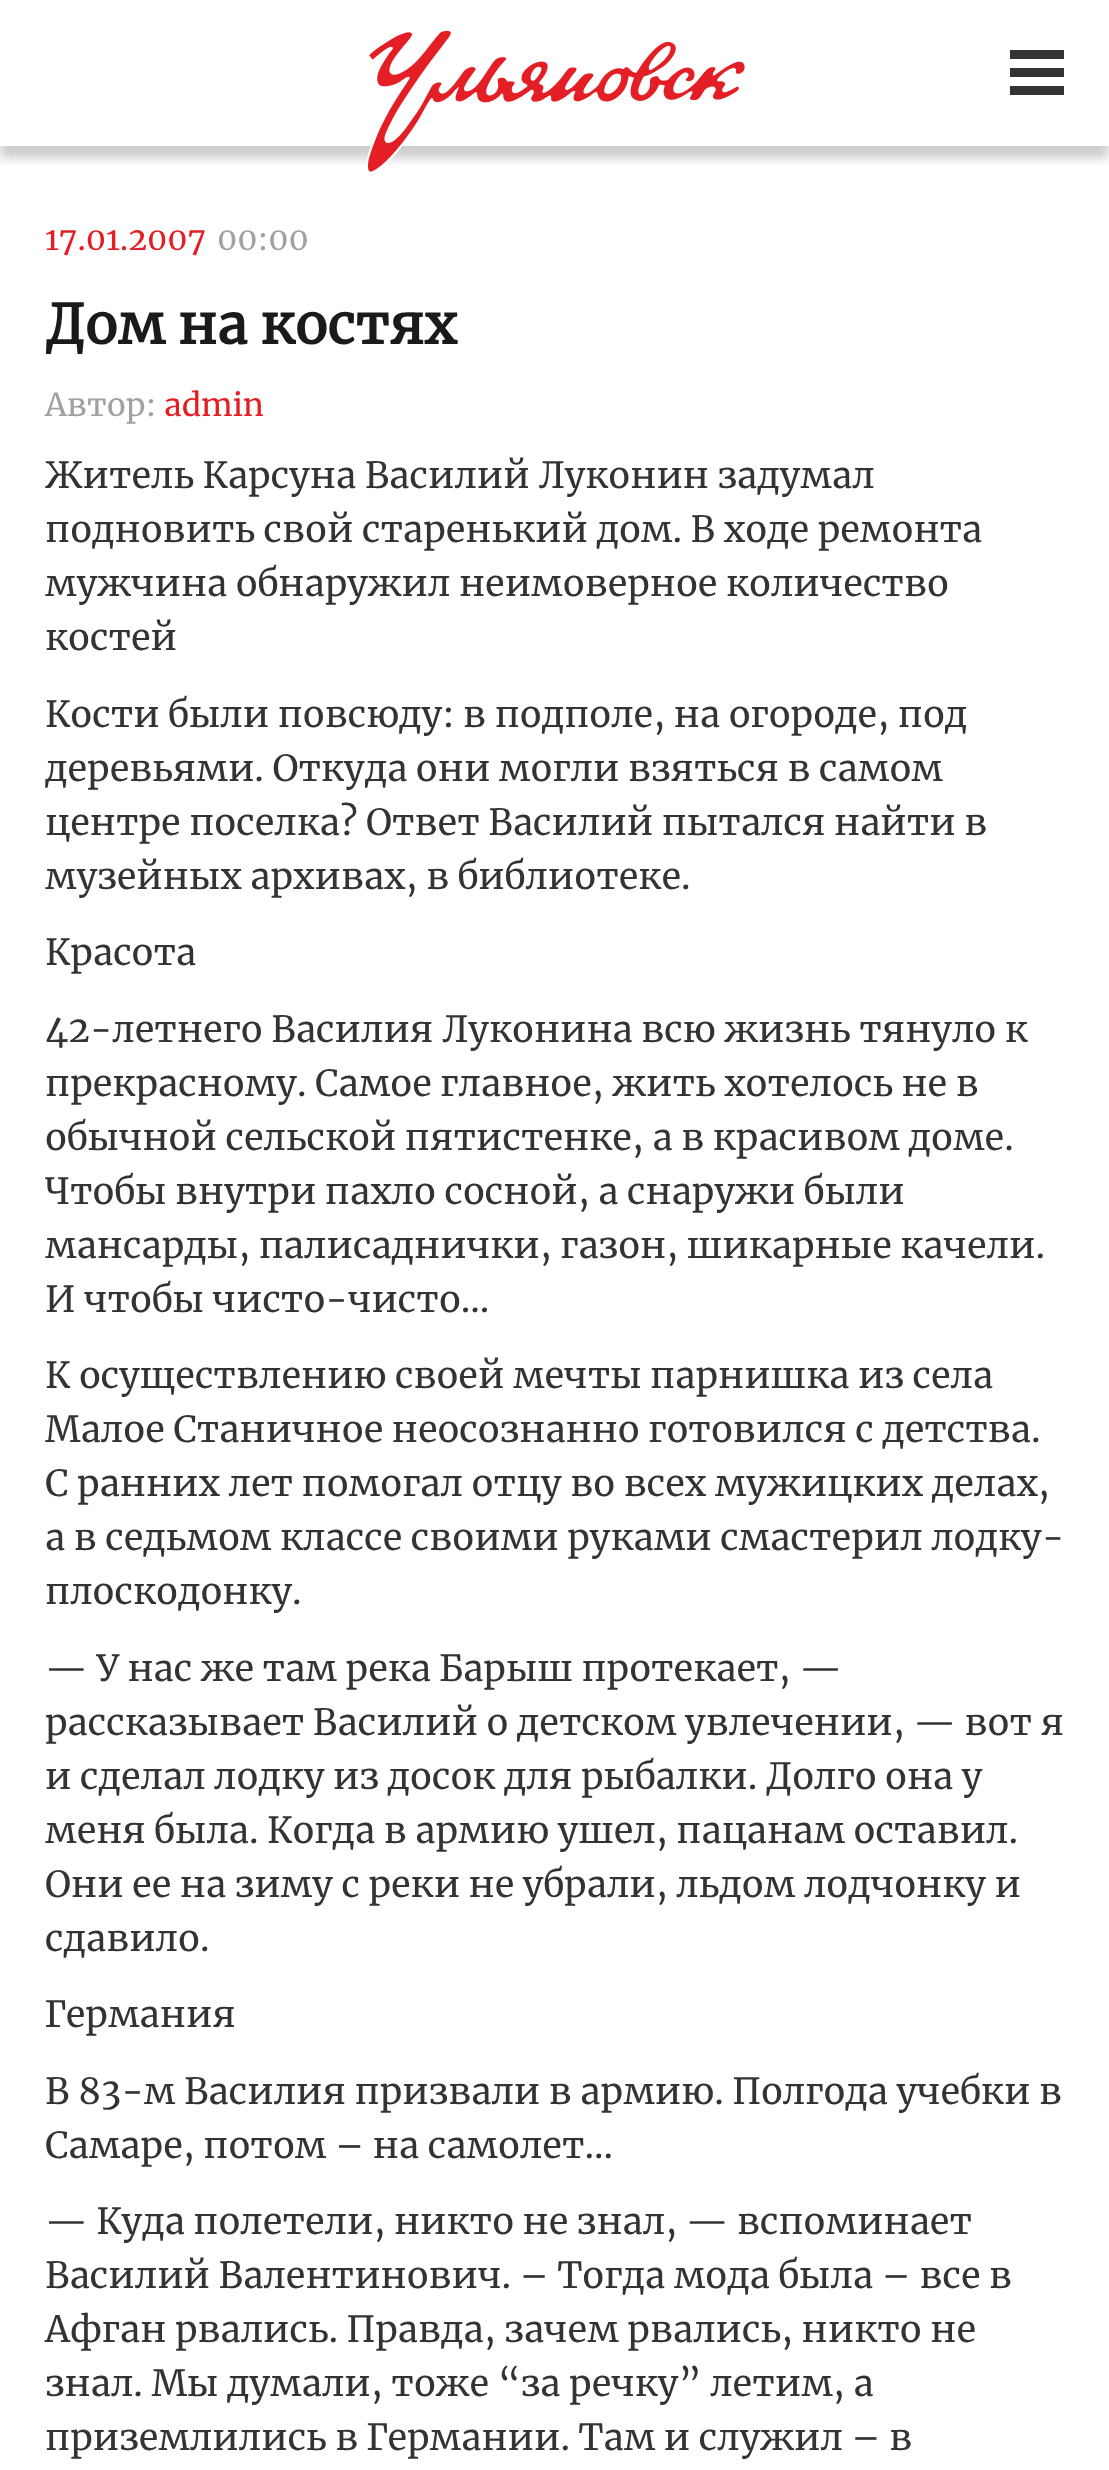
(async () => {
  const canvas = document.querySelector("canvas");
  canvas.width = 1109;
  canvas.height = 2470;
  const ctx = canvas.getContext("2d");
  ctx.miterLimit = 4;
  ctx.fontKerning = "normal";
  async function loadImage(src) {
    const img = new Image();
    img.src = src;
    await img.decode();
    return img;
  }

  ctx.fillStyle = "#ffffff";
  ctx.fillRect(0, 0, 1109, 2470);
  ctx.save();
  ctx.beginPath();
  ctx.rect(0, 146, 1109, 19);
  ctx.clip();
  ctx.fillStyle = "rgba(0, 0, 0, 0.2)";
  ctx.filter = "blur(5.5px)";
  ctx.beginPath();
  ctx.rect(0, 11, 1109, 147);
  ctx.fill();
  ctx.filter = "none";
  ctx.restore();
  ctx.drawImage(await loadImage("img/1.png"), 366, 30, 379, 142);
  for (const [x, y, w, h, color] of [
    [1010, 50, 54, 9, "#333333"],
    [1010, 68, 54, 9, "#333333"],
    [1010, 86, 54, 9, "#333333"],
  ]) {
    ctx.fillStyle = color;
    ctx.fillRect(x, y, w, h);
  }
  ctx.font = "31.5px Merriweather";
  ctx.fillStyle = "#e31e24";
  ctx.fillText("17.01.2007", 45, 250);
  ctx.fillStyle = "#a1a1a1";
  ctx.fillText("00:00", 217, 250);
  ctx.font = "bold 54px Merriweather";
  ctx.fillStyle = "#1a1a1a";
  ctx.fillText("Дом на костях", 45, 344);
  ctx.font = "31.5px Merriweather";
  ctx.fillStyle = "#a1a1a1";
  ctx.fillText("Автор:", 45, 416);
  ctx.fillStyle = "#e31e24";
  ctx.fillText("admin", 164, 416);
  ctx.font = "36px Merriweather";
  ctx.fillStyle = "#333333";
  for (const [text, x, y] of [
    ["Житель Карсуна Василий Луконин задумал", 45, 488],
    ["подновить свой старенький дом. В ходе ремонта", 45, 542],
    ["мужчина обнаружил неимоверное количество", 45, 596],
    ["костей", 45, 650],
    ["Кости были повсюду: в подполе, на огороде, под", 45, 727],
    ["деревьями. Откуда они могли взяться в самом", 45, 781],
    ["центре поселка? Ответ Василий пытался найти в", 45, 835],
    ["музейных архивах, в библиотеке.", 45, 889],
    ["Красота", 45, 965],
    ["42-летнего Василия Луконина всю жизнь тянуло к", 45, 1042],
    ["прекрасному. Самое главное, жить хотелось не в", 45, 1096],
    ["обычной сельской пятистенке, а в красивом доме.", 45, 1150],
    ["Чтобы внутри пахло сосной, а снаружи были", 45, 1204],
    ["мансарды, палисаднички, газон, шикарные качели.", 45, 1258],
    ["И чтобы чисто-чисто…", 45, 1312],
    ["К осуществлению своей мечты парнишка из села", 45, 1388],
    ["Малое Станичное неосознанно готовился с детства.", 45, 1442],
    ["С ранних лет помогал отцу во всех мужицких делах,", 45, 1496],
    ["а в седьмом классе своими руками смастерил лодку-", 45, 1550],
    ["плоскодонку.", 45, 1604],
    ["— У нас же там река Барыш протекает, —", 45, 1681],
    ["рассказывает Василий о детском увлечении, — вот я", 45, 1735],
    ["и сделал лодку из досок для рыбалки. Долго она у", 45, 1789],
    ["меня была. Когда в армию ушел, пацанам оставил.", 45, 1843],
    ["Они ее на зиму с реки не убрали, льдом лодчонку и", 45, 1897],
    ["сдавило.", 45, 1951],
    ["Германия", 45, 2027],
    ["В 83-м Василия призвали в армию. Полгода учебки в", 45, 2104],
    ["Самаре, потом – на самолет…", 45, 2158],
    ["— Куда полетели, никто не знал, — вспоминает", 45, 2234],
    ["Василий Валентинович. – Тогда мода была – все в", 45, 2288],
    ["Афган рвались. Правда, зачем рвались, никто не", 45, 2342],
    ["знал. Мы думали, тоже “за речку” летим, а", 45, 2396],
    ["приземлились в Германии. Там и служил – в", 45, 2450],
  ]) {
    ctx.fillText(text, x, y);
  }
})();
